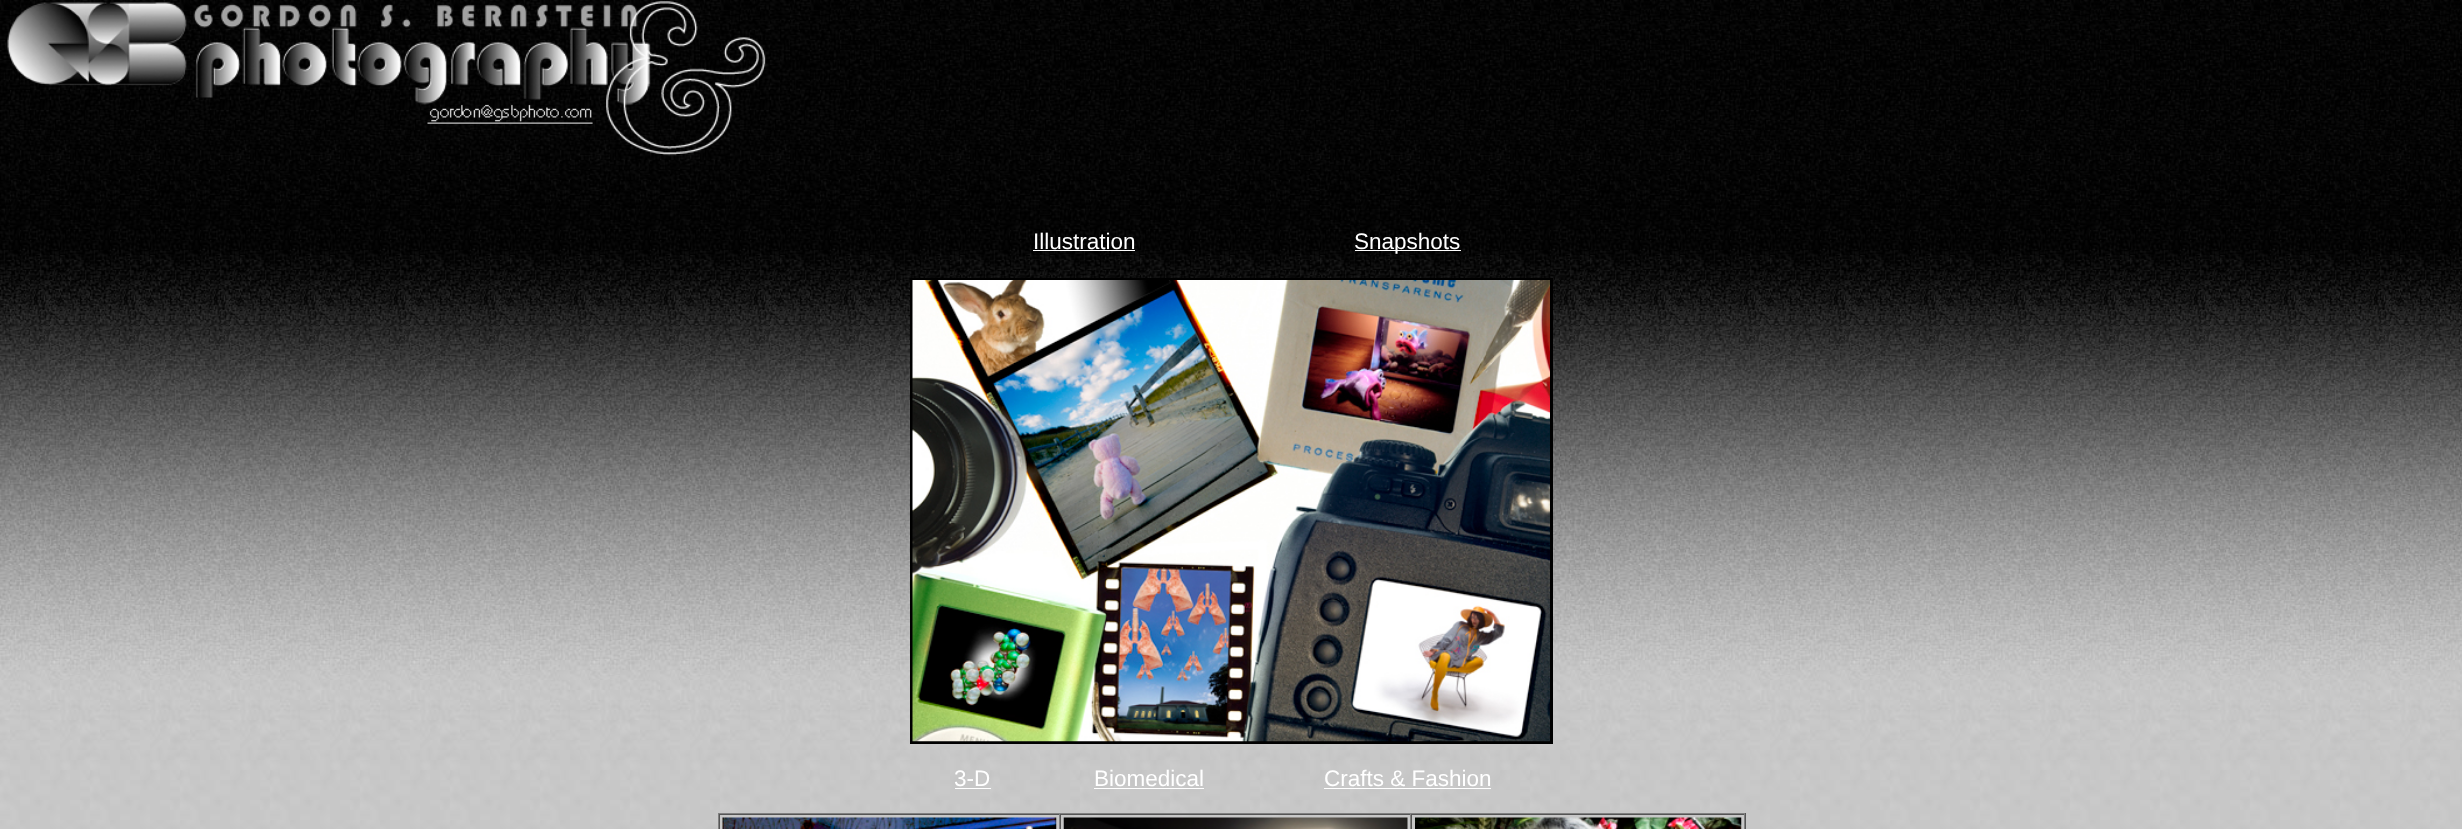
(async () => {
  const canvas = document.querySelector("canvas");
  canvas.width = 2462;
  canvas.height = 829;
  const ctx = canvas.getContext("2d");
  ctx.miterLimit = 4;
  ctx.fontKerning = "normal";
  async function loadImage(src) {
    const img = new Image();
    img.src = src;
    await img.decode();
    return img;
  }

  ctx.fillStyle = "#ffffff";
  ctx.fillRect(0, 0, 2462, 829);
  ctx.drawImage(await loadImage("img/1.png"), 0, 0, 2462, 829);
  ctx.drawImage(await loadImage("img/2.png"), 7, 1, 759, 155);
  ctx.fillRect(1033, 250, 102, 1);
  ctx.fillRect(1355, 250, 106, 1);
  ctx.strokeStyle = "#000000";
  ctx.lineWidth = 3;
  ctx.strokeRect(911.5, 279.5, 640, 463);
  ctx.drawImage(await loadImage("img/3.png"), 912, 280, 638, 462);
  for (const [x, y, w, h, color] of [
    [955, 788, 36, 1, "#ffffff"],
    [1094, 788, 110, 1, "#ffffff"],
    [1324, 788, 167, 1, "#ffffff"],
    [718, 813, 1028, 1, "#808080"],
    [1745, 813, 1, 16, "#555555"],
    [718, 813, 1, 16, "#808080"],
    [719, 814, 1026, 1, "#555555"],
    [1059, 814, 1, 15, "#808080"],
    [719, 814, 1, 15, "#555555"],
  ]) {
    ctx.fillStyle = color;
    ctx.fillRect(x, y, w, h);
  }
  ctx.drawImage(await loadImage("img/4.png"), 722, 817, 335, 12);
  ctx.fillStyle = "#808080";
  ctx.fillRect(1410, 814, 1, 15);
  ctx.fillStyle = "#555555";
  ctx.fillRect(1060, 814, 1, 15);
  ctx.drawImage(await loadImage("img/5.png"), 1063, 817, 345, 12);
  ctx.fillStyle = "#808080";
  ctx.fillRect(1744, 814, 1, 15);
  ctx.fillStyle = "#555555";
  ctx.fillRect(1411, 814, 1, 15);
  ctx.drawImage(await loadImage("img/6.png"), 1415, 817, 327, 12);
  ctx.font = "22.5px Liberation Sans";
  ctx.fillStyle = "#ffffff";
  for (const [text, x, y] of [
    ["Illustration", 1033, 249],
    ["Snapshots", 1354, 249],
    ["3-D", 954, 786],
    ["Biomedical", 1094, 786],
    ["Crafts & Fashion", 1324, 786],
  ]) {
    ctx.fillText(text, x, y);
  }
})();
